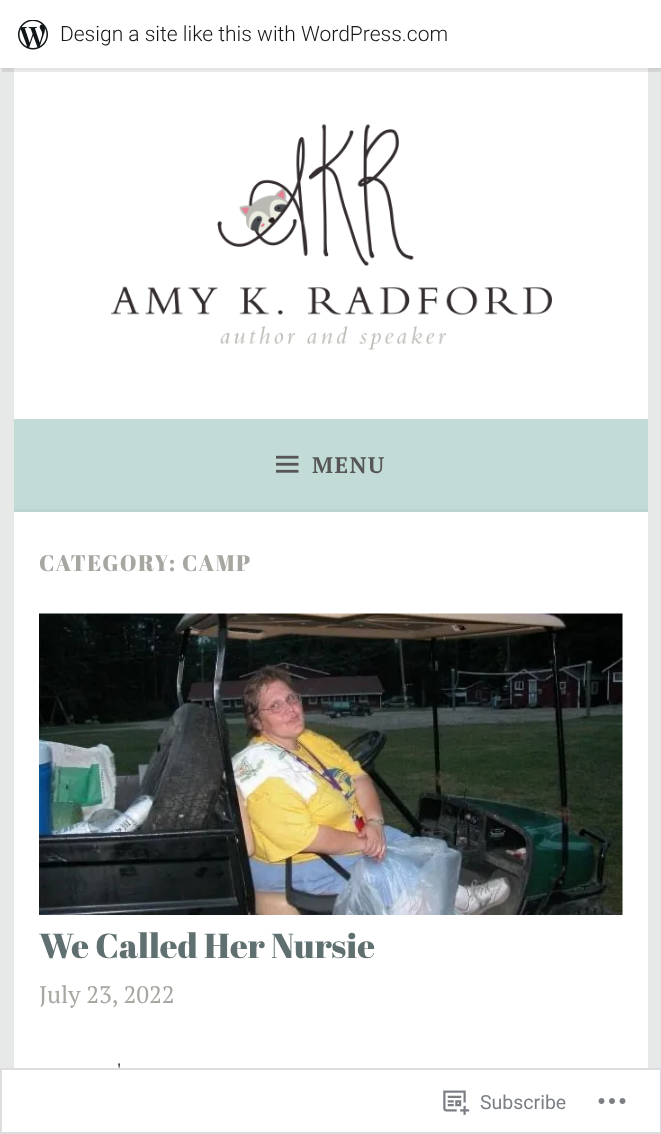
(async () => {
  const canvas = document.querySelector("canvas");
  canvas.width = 661;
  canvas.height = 1134;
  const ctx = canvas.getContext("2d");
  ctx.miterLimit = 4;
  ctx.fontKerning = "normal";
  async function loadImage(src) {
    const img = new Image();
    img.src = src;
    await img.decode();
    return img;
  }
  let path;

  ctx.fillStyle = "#e7e8e8";
  ctx.fillRect(0, 0, 661, 1134);
  ctx.fillStyle = "#ffffff";
  ctx.fillRect(14, 68, 634, 351);
  ctx.fillStyle = "rgba(0, 0, 0, 0.05)";
  ctx.filter = "blur(1.5px)";
  ctx.beginPath();
  ctx.rect(0, 2, 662, 67);
  ctx.fill();
  ctx.filter = "none";
  ctx.fillStyle = "rgba(0, 0, 0, 0.08)";
  path = new Path2D("M2 68V72H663V5H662V68Z");
  ctx.fill(path);
  ctx.fillStyle = "#ffffff";
  ctx.fillRect(0, 0, 661, 68);
  ctx.drawImage(await loadImage("img/1.png"), 18, 20, 30, 30);
  ctx.drawImage(await loadImage("img/2.png"), 111, 124, 441, 226);
  ctx.fillStyle = "#c2dbd7";
  ctx.fillRect(14, 419, 634, 90);
  ctx.fillStyle = "#bcd4d1";
  ctx.fillRect(14, 509, 634, 3);
  ctx.drawImage(await loadImage("img/3.png"), 276, 455, 23, 18);
  ctx.fillStyle = "#ffffff";
  ctx.fillRect(14, 512, 634, 622);
  ctx.fillStyle = "#f8f9f8";
  ctx.fillRect(622, 614, 1, 301);
  ctx.drawImage(await loadImage("img/4.png"), 39, 613, 584, 302);
  ctx.fillStyle = "rgba(255, 255, 255, 0.98)";
  ctx.fillRect(0, 1068, 661, 66);
  ctx.strokeStyle = "rgba(220, 220, 222, 0.98)";
  ctx.lineWidth = 2;
  ctx.strokeRect(1, 1069, 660, 64);
  ctx.drawImage(await loadImage("img/5.png"), 443, 1090, 27, 25);
  ctx.drawImage(await loadImage("img/6.png"), 598, 1098, 28, 6);
  ctx.font = "300 21px Roboto";
  ctx.fillStyle = "#171717";
  ctx.fillText("Design a site like this with WordPress.com", 60, 41);
  ctx.letterSpacing = "1.5px";
  ctx.font = "bold 22.5px PT Serif";
  ctx.fillStyle = "#565656";
  ctx.fillText("MENU", 312, 473);
  ctx.font = "22.5px Abril Fatface";
  ctx.fillStyle = "#a8a6a1";
  ctx.fillText("CATEGORY: CAMP", 39, 571);
  ctx.letterSpacing = "0px";
  ctx.font = "34.5px Abril Fatface";
  ctx.fillStyle = "#607070";
  ctx.fillText("We Called Her Nursie", 39, 958);
  ctx.font = "24px PT Serif";
  ctx.fillStyle = "#a8a6a1";
  ctx.fillText("July 23, 2022", 39, 1003);
  ctx.fillStyle = "#444340";
  ctx.fillText("'", 116, 1080);
  ctx.font = "19.5px Roboto";
  ctx.fillStyle = "#7b7f84";
  ctx.fillText("Subscribe", 480, 1109);
})();
